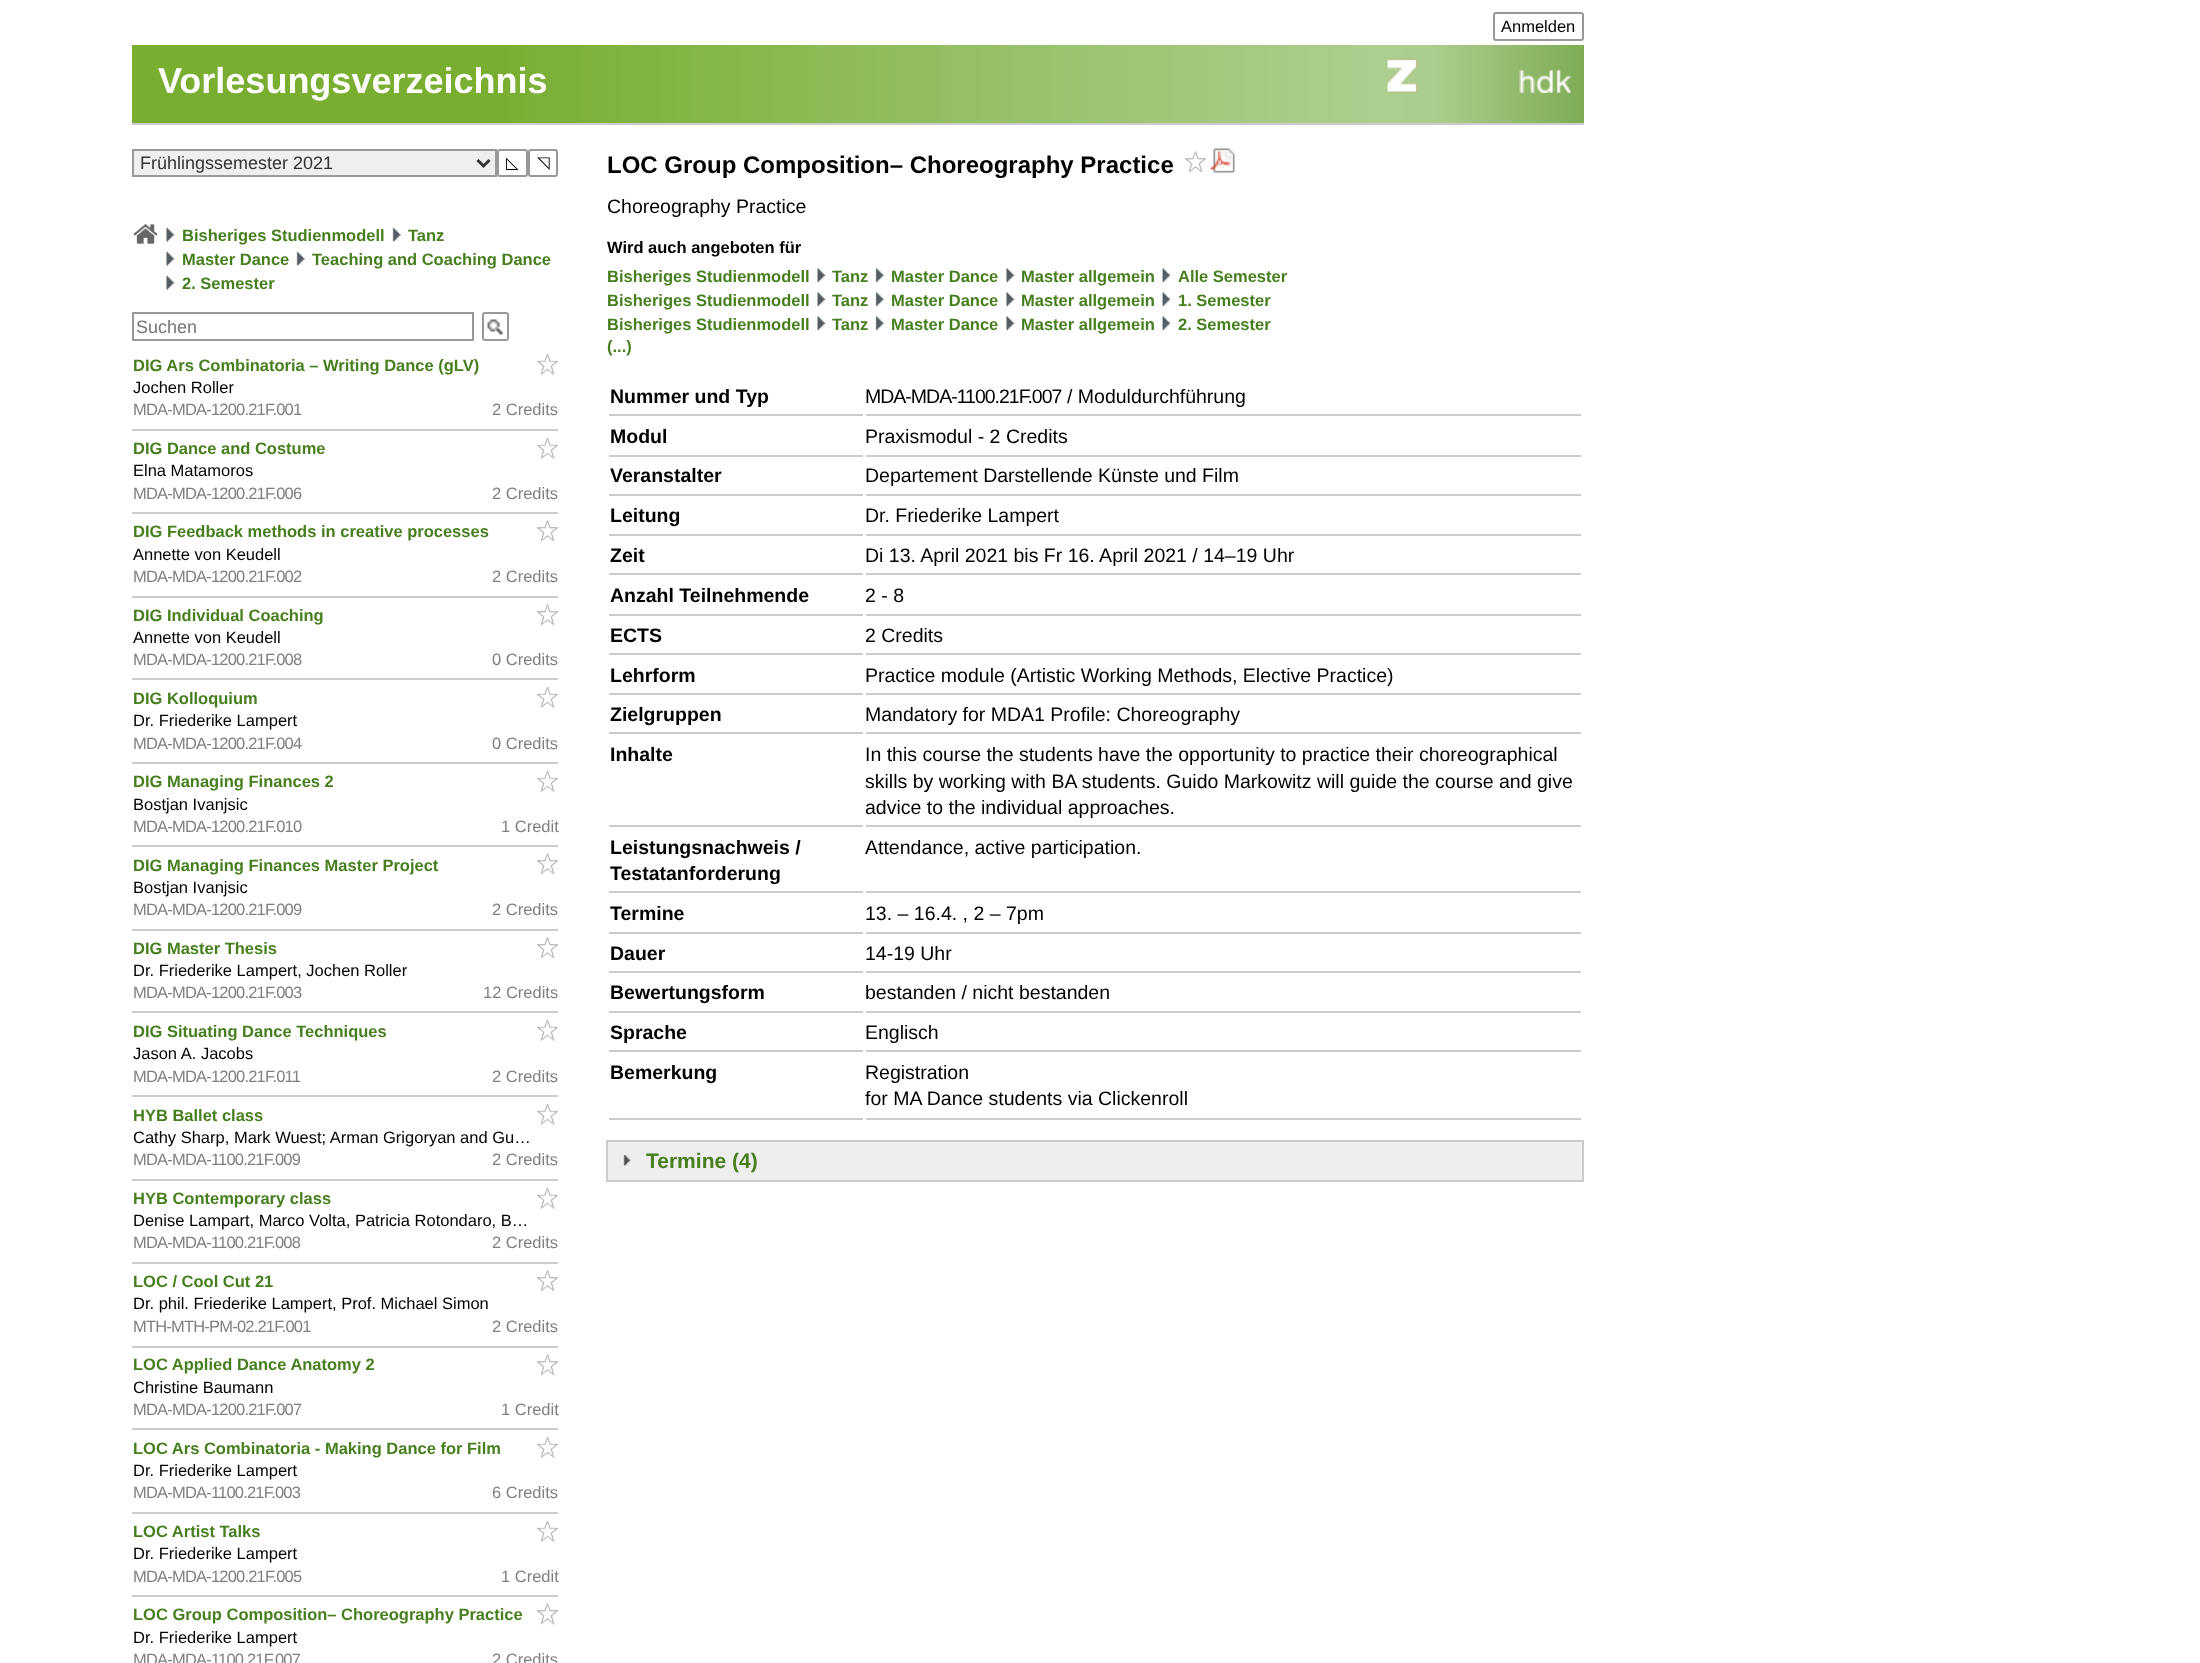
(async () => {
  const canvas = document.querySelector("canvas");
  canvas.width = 2200;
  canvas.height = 1663;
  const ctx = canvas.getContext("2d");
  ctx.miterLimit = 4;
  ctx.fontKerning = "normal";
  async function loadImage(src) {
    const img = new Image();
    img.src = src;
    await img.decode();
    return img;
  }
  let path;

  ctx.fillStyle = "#ffffff";
  ctx.fillRect(0, 0, 2200, 1663);
  ctx.beginPath();
  ctx.roundRect(1494, 13, 89, 27, 2);
  ctx.strokeStyle = "#999999";
  ctx.lineWidth = 2;
  ctx.stroke();
  ctx.drawImage(await loadImage("img/1.png"), 132, 45, 1452, 78);
  ctx.drawImage(await loadImage("img/2.png"), 1387, 58, 184, 35);
  ctx.fillStyle = "#cccccc";
  ctx.fillRect(132, 123, 1452, 2);
  ctx.fillStyle = "#efefef";
  ctx.beginPath();
  ctx.rect(133, 150, 363, 26);
  ctx.fill();
  ctx.stroke();
  path = new Path2D("M477.5 160L483.5 166L489.5 160");
  ctx.strokeStyle = "#333333";
  ctx.lineWidth = 3;
  ctx.stroke(path);
  ctx.beginPath();
  ctx.roundRect(498, 150, 29, 26, 2);
  ctx.strokeStyle = "#999999";
  ctx.lineWidth = 2;
  ctx.stroke();
  ctx.beginPath();
  ctx.roundRect(529, 150, 28, 26, 2);
  ctx.stroke();
  ctx.drawImage(await loadImage("img/3.png"), 134, 224, 24, 20);
  ctx.drawImage(await loadImage("img/4.png"), 166, 227, 9, 15);
  ctx.drawImage(await loadImage("img/5.png"), 392, 227, 9, 15);
  ctx.drawImage(await loadImage("img/4.png"), 166, 251, 9, 15);
  ctx.drawImage(await loadImage("img/5.png"), 296, 251, 9, 15);
  ctx.drawImage(await loadImage("img/4.png"), 166, 275, 9, 15);
  ctx.strokeRect(133, 313, 340, 27);
  ctx.drawImage(await loadImage("img/6.png"), 487, 319, 16, 16);
  ctx.beginPath();
  ctx.roundRect(483, 313, 25, 27, 2);
  ctx.stroke();
  ctx.fillStyle = "#cccccc";
  ctx.fillRect(132, 429, 426, 2);
  ctx.drawImage(await loadImage("img/7.png"), 537, 354, 21, 21);
  ctx.fillRect(132, 512, 426, 2);
  ctx.drawImage(await loadImage("img/7.png"), 537, 438, 21, 21);
  ctx.fillRect(132, 596, 426, 2);
  ctx.drawImage(await loadImage("img/8.png"), 537, 520, 21, 22);
  ctx.fillRect(132, 678, 426, 2);
  ctx.drawImage(await loadImage("img/8.png"), 537, 604, 21, 22);
  ctx.fillRect(132, 762, 426, 2);
  ctx.drawImage(await loadImage("img/7.png"), 537, 687, 21, 21);
  ctx.fillRect(132, 845, 426, 2);
  ctx.drawImage(await loadImage("img/7.png"), 537, 771, 21, 21);
  ctx.fillRect(132, 929, 426, 2);
  ctx.drawImage(await loadImage("img/8.png"), 537, 853, 21, 22);
  ctx.fillRect(132, 1011, 426, 2);
  ctx.drawImage(await loadImage("img/8.png"), 537, 937, 21, 22);
  ctx.fillRect(132, 1095, 426, 2);
  ctx.drawImage(await loadImage("img/7.png"), 537, 1020, 21, 21);
  ctx.fillRect(132, 1179, 426, 2);
  ctx.drawImage(await loadImage("img/7.png"), 537, 1104, 21, 21);
  ctx.fillRect(132, 1262, 426, 2);
  ctx.drawImage(await loadImage("img/7.png"), 537, 1188, 21, 21);
  ctx.fillRect(132, 1346, 426, 2);
  ctx.drawImage(await loadImage("img/8.png"), 537, 1270, 21, 22);
  ctx.fillRect(132, 1428, 426, 2);
  ctx.drawImage(await loadImage("img/8.png"), 537, 1354, 21, 22);
  ctx.fillRect(132, 1512, 426, 2);
  ctx.drawImage(await loadImage("img/7.png"), 537, 1437, 21, 21);
  ctx.fillRect(132, 1595, 426, 2);
  ctx.drawImage(await loadImage("img/7.png"), 537, 1521, 21, 21);
  ctx.drawImage(await loadImage("img/8.png"), 537, 1603, 21, 22);
  ctx.drawImage(await loadImage("img/9.png"), 1185, 151, 21, 22);
  ctx.drawImage(await loadImage("img/10.png"), 1210, 148, 25, 25);
  ctx.drawImage(await loadImage("img/11.png"), 817, 268, 9, 15);
  ctx.drawImage(await loadImage("img/12.png"), 875, 268, 9, 15);
  ctx.drawImage(await loadImage("img/11.png"), 1006, 268, 9, 15);
  ctx.drawImage(await loadImage("img/13.png"), 1162, 268, 9, 15);
  ctx.drawImage(await loadImage("img/11.png"), 817, 292, 9, 15);
  ctx.drawImage(await loadImage("img/12.png"), 875, 292, 9, 15);
  ctx.drawImage(await loadImage("img/11.png"), 1006, 292, 9, 15);
  ctx.drawImage(await loadImage("img/13.png"), 1162, 292, 9, 15);
  ctx.drawImage(await loadImage("img/11.png"), 817, 316, 9, 15);
  ctx.drawImage(await loadImage("img/12.png"), 875, 316, 9, 15);
  ctx.drawImage(await loadImage("img/11.png"), 1006, 316, 9, 15);
  ctx.drawImage(await loadImage("img/13.png"), 1162, 316, 9, 15);
  for (const [x, y, w, h, color] of [
    [609, 414, 254, 2, "#cccccc"],
    [866, 414, 715, 2, "#cccccc"],
    [609, 455, 254, 2, "#cccccc"],
    [866, 455, 715, 2, "#cccccc"],
    [609, 494, 254, 2, "#cccccc"],
    [866, 494, 715, 2, "#cccccc"],
    [609, 534, 254, 2, "#cccccc"],
    [866, 534, 715, 2, "#cccccc"],
    [609, 573, 254, 2, "#cccccc"],
    [866, 573, 715, 2, "#cccccc"],
    [609, 614, 254, 2, "#cccccc"],
    [866, 614, 715, 2, "#cccccc"],
    [609, 653, 254, 2, "#cccccc"],
    [866, 653, 715, 2, "#cccccc"],
    [609, 693, 254, 2, "#cccccc"],
    [866, 693, 715, 2, "#cccccc"],
    [609, 732, 254, 2, "#cccccc"],
    [866, 732, 715, 2, "#cccccc"],
    [609, 825, 254, 2, "#cccccc"],
    [866, 825, 715, 2, "#cccccc"],
    [609, 891, 254, 2, "#cccccc"],
    [866, 891, 715, 2, "#cccccc"],
    [609, 932, 254, 2, "#cccccc"],
    [866, 932, 715, 2, "#cccccc"],
    [609, 971, 254, 2, "#cccccc"],
    [866, 971, 715, 2, "#cccccc"],
    [609, 1011, 254, 2, "#cccccc"],
    [866, 1011, 715, 2, "#cccccc"],
    [609, 1050, 254, 2, "#cccccc"],
    [866, 1050, 715, 2, "#cccccc"],
    [609, 1118, 254, 2, "#cccccc"],
    [866, 1118, 715, 2, "#cccccc"],
    [608, 1142, 974, 38, "#eeeeee"],
  ]) {
    ctx.fillStyle = color;
    ctx.fillRect(x, y, w, h);
  }
  ctx.drawImage(await loadImage("img/14.png"), 623, 1155, 8, 11);
  ctx.strokeStyle = "#cccccc";
  ctx.strokeRect(607, 1141, 976, 40);
  ctx.font = "16.5px Liberation Sans";
  ctx.fillStyle = "#000000";
  ctx.fillText("Anmelden", 1501, 32);
  ctx.font = "bold 36px Liberation Sans";
  ctx.fillStyle = "#ffffff";
  ctx.fillText("Vorlesungsverzeichnis", 158, 93);
  ctx.font = "18px Liberation Sans";
  ctx.fillStyle = "#333333";
  ctx.fillText("Frühlingssemester 2021", 140, 169);
  ctx.font = "16.5px DejaVu Sans";
  ctx.fillStyle = "#000000";
  ctx.fillText("◺", 506, 168);
  ctx.fillText("◹", 537, 168);
  ctx.font = "bold 16.5px Liberation Sans";
  ctx.fillStyle = "#477e1e";
  for (const [text, x, y] of [
    ["Bisheriges Studienmodell", 182, 241],
    ["Tanz", 408, 241],
    ["Master Dance", 182, 265],
    ["Teaching and Coaching Dance", 312, 265],
    ["2. Semester", 182, 289],
  ]) {
    ctx.fillText(text, x, y);
  }
  ctx.font = "18px Liberation Sans";
  ctx.fillStyle = "#757575";
  ctx.fillText("Suchen", 136, 333);
  ctx.font = "bold 16.5px Liberation Sans";
  ctx.fillStyle = "#477e1e";
  ctx.fillText("DIG Ars Combinatoria – Writing Dance (gLV)", 133, 371);
  ctx.font = "16.5px Liberation Sans";
  ctx.fillStyle = "#000000";
  ctx.fillText("Jochen Roller", 133, 393);
  ctx.letterSpacing = "-0.8px";
  ctx.fillStyle = "#808080";
  ctx.fillText("MDA-MDA-1200.21F.001", 133, 415);
  ctx.letterSpacing = "0px";
  ctx.fillText("2 Credits", 492, 415);
  ctx.font = "bold 16.5px Liberation Sans";
  ctx.fillStyle = "#477e1e";
  ctx.fillText("DIG Dance and Costume", 133, 454);
  ctx.font = "16.5px Liberation Sans";
  ctx.fillStyle = "#000000";
  ctx.fillText("Elna Matamoros", 133, 476);
  ctx.letterSpacing = "-0.8px";
  ctx.fillStyle = "#808080";
  ctx.fillText("MDA-MDA-1200.21F.006", 133, 499);
  ctx.letterSpacing = "0px";
  ctx.fillText("2 Credits", 492, 499);
  ctx.font = "bold 16.5px Liberation Sans";
  ctx.fillStyle = "#477e1e";
  ctx.fillText("DIG Feedback methods in creative processes", 133, 537);
  ctx.font = "16.5px Liberation Sans";
  ctx.fillStyle = "#000000";
  ctx.fillText("Annette von Keudell", 133, 560);
  ctx.letterSpacing = "-0.8px";
  ctx.fillStyle = "#808080";
  ctx.fillText("MDA-MDA-1200.21F.002", 133, 582);
  ctx.letterSpacing = "0px";
  ctx.fillText("2 Credits", 492, 582);
  ctx.font = "bold 16.5px Liberation Sans";
  ctx.fillStyle = "#477e1e";
  ctx.fillText("DIG Individual Coaching", 133, 621);
  ctx.font = "16.5px Liberation Sans";
  ctx.fillStyle = "#000000";
  ctx.fillText("Annette von Keudell", 133, 643);
  ctx.letterSpacing = "-0.8px";
  ctx.fillStyle = "#808080";
  ctx.fillText("MDA-MDA-1200.21F.008", 133, 665);
  ctx.letterSpacing = "0px";
  ctx.fillText("0 Credits", 492, 665);
  ctx.font = "bold 16.5px Liberation Sans";
  ctx.fillStyle = "#477e1e";
  ctx.fillText("DIG Kolloquium", 133, 704);
  ctx.font = "16.5px Liberation Sans";
  ctx.fillStyle = "#000000";
  ctx.fillText("Dr. Friederike Lampert", 133, 726);
  ctx.letterSpacing = "-0.8px";
  ctx.fillStyle = "#808080";
  ctx.fillText("MDA-MDA-1200.21F.004", 133, 749);
  ctx.letterSpacing = "0px";
  ctx.fillText("0 Credits", 492, 749);
  ctx.font = "bold 16.5px Liberation Sans";
  ctx.fillStyle = "#477e1e";
  ctx.fillText("DIG Managing Finances 2", 133, 787);
  ctx.font = "16.5px Liberation Sans";
  ctx.fillStyle = "#000000";
  ctx.fillText("Bostjan Ivanjsic", 133, 810);
  ctx.letterSpacing = "-0.8px";
  ctx.fillStyle = "#808080";
  ctx.fillText("MDA-MDA-1200.21F.010", 133, 832);
  ctx.letterSpacing = "0px";
  ctx.fillText("1 Credit", 501, 832);
  ctx.font = "bold 16.5px Liberation Sans";
  ctx.fillStyle = "#477e1e";
  ctx.fillText("DIG Managing Finances Master Project", 133, 871);
  ctx.font = "16.5px Liberation Sans";
  ctx.fillStyle = "#000000";
  ctx.fillText("Bostjan Ivanjsic", 133, 893);
  ctx.letterSpacing = "-0.8px";
  ctx.fillStyle = "#808080";
  ctx.fillText("MDA-MDA-1200.21F.009", 133, 915);
  ctx.letterSpacing = "0px";
  ctx.fillText("2 Credits", 492, 915);
  ctx.font = "bold 16.5px Liberation Sans";
  ctx.fillStyle = "#477e1e";
  ctx.fillText("DIG Master Thesis", 133, 954);
  ctx.font = "16.5px Liberation Sans";
  ctx.fillStyle = "#000000";
  ctx.fillText("Dr. Friederike Lampert, Jochen Roller", 133, 976);
  ctx.letterSpacing = "-0.8px";
  ctx.fillStyle = "#808080";
  ctx.fillText("MDA-MDA-1200.21F.003", 133, 998);
  ctx.letterSpacing = "0px";
  ctx.fillText("12 Credits", 483, 998);
  ctx.font = "bold 16.5px Liberation Sans";
  ctx.fillStyle = "#477e1e";
  ctx.fillText("DIG Situating Dance Techniques", 133, 1037);
  ctx.font = "16.5px Liberation Sans";
  ctx.fillStyle = "#000000";
  ctx.fillText("Jason A. Jacobs", 133, 1059);
  ctx.letterSpacing = "-0.8px";
  ctx.fillStyle = "#808080";
  ctx.fillText("MDA-MDA-1200.21F.011", 133, 1082);
  ctx.letterSpacing = "0px";
  ctx.fillText("2 Credits", 492, 1082);
  ctx.font = "bold 16.5px Liberation Sans";
  ctx.fillStyle = "#477e1e";
  ctx.fillText("HYB Ballet class", 133, 1121);
  ctx.font = "16.5px Liberation Sans";
  ctx.fillStyle = "#000000";
  ctx.fillText("Cathy Sharp, Mark Wuest; Arman Grigoryan and Gu…", 133, 1143);
  ctx.letterSpacing = "-0.8px";
  ctx.fillStyle = "#808080";
  ctx.fillText("MDA-MDA-1100.21F.009", 133, 1165);
  ctx.letterSpacing = "0px";
  ctx.fillText("2 Credits", 492, 1165);
  ctx.font = "bold 16.5px Liberation Sans";
  ctx.fillStyle = "#477e1e";
  ctx.fillText("HYB Contemporary class", 133, 1204);
  ctx.font = "16.5px Liberation Sans";
  ctx.fillStyle = "#000000";
  ctx.fillText("Denise Lampart, Marco Volta, Patricia Rotondaro, B…", 133, 1226);
  ctx.letterSpacing = "-0.8px";
  ctx.fillStyle = "#808080";
  ctx.fillText("MDA-MDA-1100.21F.008", 133, 1248);
  ctx.letterSpacing = "0px";
  ctx.fillText("2 Credits", 492, 1248);
  ctx.font = "bold 16.5px Liberation Sans";
  ctx.fillStyle = "#477e1e";
  ctx.fillText("LOC / Cool Cut 21", 133, 1287);
  ctx.font = "16.5px Liberation Sans";
  ctx.fillStyle = "#000000";
  ctx.fillText("Dr. phil. Friederike Lampert, Prof. Michael Simon", 133, 1309);
  ctx.letterSpacing = "-0.8px";
  ctx.fillStyle = "#808080";
  ctx.fillText("MTH-MTH-PM-02.21F.001", 133, 1332);
  ctx.letterSpacing = "0px";
  ctx.fillText("2 Credits", 492, 1332);
  ctx.font = "bold 16.5px Liberation Sans";
  ctx.fillStyle = "#477e1e";
  ctx.fillText("LOC Applied Dance Anatomy 2", 133, 1370);
  ctx.font = "16.5px Liberation Sans";
  ctx.fillStyle = "#000000";
  ctx.fillText("Christine Baumann", 133, 1393);
  ctx.letterSpacing = "-0.8px";
  ctx.fillStyle = "#808080";
  ctx.fillText("MDA-MDA-1200.21F.007", 133, 1415);
  ctx.letterSpacing = "0px";
  ctx.fillText("1 Credit", 501, 1415);
  ctx.font = "bold 16.5px Liberation Sans";
  ctx.fillStyle = "#477e1e";
  ctx.fillText("LOC Ars Combinatoria - Making Dance for Film", 133, 1454);
  ctx.font = "16.5px Liberation Sans";
  ctx.fillStyle = "#000000";
  ctx.fillText("Dr. Friederike Lampert", 133, 1476);
  ctx.letterSpacing = "-0.8px";
  ctx.fillStyle = "#808080";
  ctx.fillText("MDA-MDA-1100.21F.003", 133, 1498);
  ctx.letterSpacing = "0px";
  ctx.fillText("6 Credits", 492, 1498);
  ctx.font = "bold 16.5px Liberation Sans";
  ctx.fillStyle = "#477e1e";
  ctx.fillText("LOC Artist Talks", 133, 1537);
  ctx.font = "16.5px Liberation Sans";
  ctx.fillStyle = "#000000";
  ctx.fillText("Dr. Friederike Lampert", 133, 1559);
  ctx.letterSpacing = "-0.8px";
  ctx.fillStyle = "#808080";
  ctx.fillText("MDA-MDA-1200.21F.005", 133, 1582);
  ctx.letterSpacing = "0px";
  ctx.fillText("1 Credit", 501, 1582);
  ctx.font = "bold 16.5px Liberation Sans";
  ctx.fillStyle = "#477e1e";
  ctx.fillText("LOC Group Composition– Choreography Practice", 133, 1620);
  ctx.font = "16.5px Liberation Sans";
  ctx.fillStyle = "#000000";
  ctx.fillText("Dr. Friederike Lampert", 133, 1643);
  ctx.letterSpacing = "-0.8px";
  ctx.fillStyle = "#808080";
  ctx.fillText("MDA-MDA-1100.21F.007", 133, 1665);
  ctx.letterSpacing = "0px";
  ctx.fillText("2 Credits", 492, 1665);
  ctx.font = "bold 24px Liberation Sans";
  ctx.fillStyle = "#000000";
  ctx.fillText("LOC Group Composition– Choreography Practice", 607, 173);
  ctx.font = "19.5px Liberation Sans";
  ctx.fillText("Choreography Practice", 607, 213);
  ctx.font = "bold 16.5px Liberation Sans";
  ctx.fillText("Wird auch angeboten für", 607, 253);
  ctx.fillStyle = "#477e1e";
  for (const [text, x, y] of [
    ["Bisheriges Studienmodell", 607, 282],
    ["Tanz", 832, 282],
    ["Master Dance", 891, 282],
    ["Master allgemein", 1021, 282],
    ["Alle Semester", 1178, 282],
    ["Bisheriges Studienmodell", 607, 306],
    ["Tanz", 832, 306],
    ["Master Dance", 891, 306],
    ["Master allgemein", 1021, 306],
    ["1. Semester", 1178, 306],
    ["Bisheriges Studienmodell", 607, 330],
    ["Tanz", 832, 330],
    ["Master Dance", 891, 330],
    ["Master allgemein", 1021, 330],
    ["2. Semester", 1178, 330],
    ["(...)", 607, 352],
  ]) {
    ctx.fillText(text, x, y);
  }
  ctx.font = "bold 19.5px Liberation Sans";
  ctx.fillStyle = "#000000";
  ctx.fillText("Nummer und Typ", 610, 403);
  ctx.letterSpacing = "-1px";
  ctx.font = "19.5px Liberation Sans";
  ctx.fillText("MDA-MDA-1100.21F.007", 865, 403);
  ctx.letterSpacing = "0px";
  ctx.fillText("/ Moduldurchführung", 1067, 403);
  ctx.font = "bold 19.5px Liberation Sans";
  ctx.fillText("Modul", 610, 443);
  ctx.font = "19.5px Liberation Sans";
  ctx.fillText("Praxismodul - 2 Credits", 865, 443);
  ctx.font = "bold 19.5px Liberation Sans";
  ctx.fillText("Veranstalter", 610, 482);
  ctx.font = "19.5px Liberation Sans";
  ctx.fillText("Departement Darstellende Künste und Film", 865, 482);
  ctx.font = "bold 19.5px Liberation Sans";
  ctx.fillText("Leitung", 610, 522);
  ctx.font = "19.5px Liberation Sans";
  ctx.fillText("Dr. Friederike Lampert", 865, 522);
  ctx.font = "bold 19.5px Liberation Sans";
  ctx.fillText("Zeit", 610, 562);
  ctx.font = "19.5px Liberation Sans";
  ctx.fillText("Di 13. April 2021 bis Fr 16. April 2021 / 14–19 Uhr", 865, 562);
  ctx.font = "bold 19.5px Liberation Sans";
  ctx.fillText("Anzahl Teilnehmende", 610, 602);
  ctx.font = "19.5px Liberation Sans";
  ctx.fillText("2 - 8", 865, 602);
  ctx.font = "bold 19.5px Liberation Sans";
  ctx.fillText("ECTS", 610, 642);
  ctx.font = "19.5px Liberation Sans";
  ctx.fillText("2 Credits", 865, 642);
  ctx.font = "bold 19.5px Liberation Sans";
  ctx.fillText("Lehrform", 610, 682);
  ctx.font = "19.5px Liberation Sans";
  ctx.fillText("Practice module (Artistic Working Methods, Elective Practice)", 865, 682);
  ctx.font = "bold 19.5px Liberation Sans";
  ctx.fillText("Zielgruppen", 610, 721);
  ctx.font = "19.5px Liberation Sans";
  ctx.fillText("Mandatory for MDA1 Profile: Choreography", 865, 721);
  ctx.font = "bold 19.5px Liberation Sans";
  ctx.fillText("Inhalte", 610, 761);
  ctx.font = "19.5px Liberation Sans";
  for (const [text, x, y] of [
    ["In this course the students have the opportunity to practice their choreographical", 865, 761],
    ["skills by working with BA students. Guido Markowitz will guide the course and give", 865, 788],
    ["advice to the individual approaches.", 865, 814],
  ]) {
    ctx.fillText(text, x, y);
  }
  ctx.font = "bold 19.5px Liberation Sans";
  ctx.fillText("Leistungsnachweis /", 610, 854);
  ctx.fillText("Testatanforderung", 610, 880);
  ctx.font = "19.5px Liberation Sans";
  ctx.fillText("Attendance, active participation.", 865, 854);
  ctx.font = "bold 19.5px Liberation Sans";
  ctx.fillText("Termine", 610, 920);
  ctx.font = "19.5px Liberation Sans";
  ctx.fillText("13. – 16.4. , 2 – 7pm", 865, 920);
  ctx.font = "bold 19.5px Liberation Sans";
  ctx.fillText("Dauer", 610, 960);
  ctx.font = "19.5px Liberation Sans";
  ctx.fillText("14-19 Uhr", 865, 960);
  ctx.font = "bold 19.5px Liberation Sans";
  ctx.fillText("Bewertungsform", 610, 999);
  ctx.font = "19.5px Liberation Sans";
  ctx.fillText("bestanden / nicht bestanden", 865, 999);
  ctx.font = "bold 19.5px Liberation Sans";
  ctx.fillText("Sprache", 610, 1039);
  ctx.font = "19.5px Liberation Sans";
  ctx.fillText("Englisch", 865, 1039);
  ctx.font = "bold 19.5px Liberation Sans";
  ctx.fillText("Bemerkung", 610, 1079);
  ctx.font = "19.5px Liberation Sans";
  ctx.fillText("Registration", 865, 1079);
  ctx.fillText("for MA Dance students via Clickenroll", 865, 1105);
  ctx.font = "bold 21px Liberation Sans";
  ctx.fillStyle = "#477e1e";
  ctx.fillText("Termine (4)", 646, 1168);
})();
